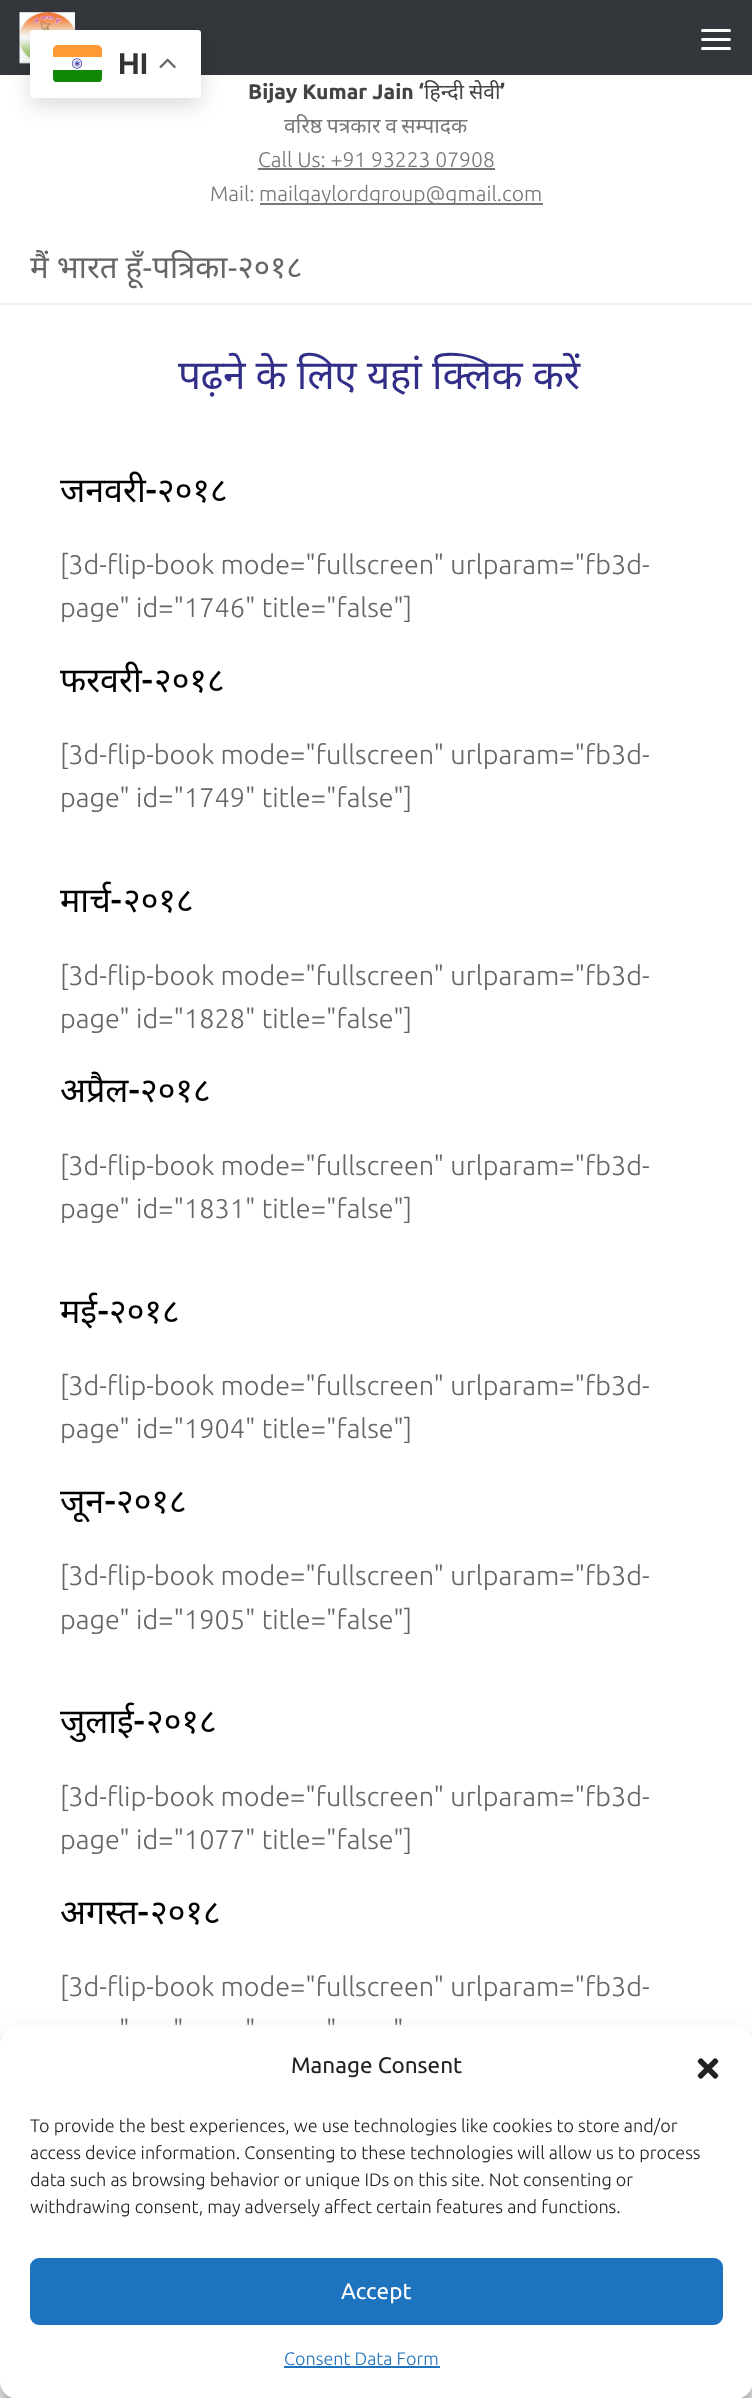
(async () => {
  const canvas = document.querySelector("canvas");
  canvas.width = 752;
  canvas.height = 2398;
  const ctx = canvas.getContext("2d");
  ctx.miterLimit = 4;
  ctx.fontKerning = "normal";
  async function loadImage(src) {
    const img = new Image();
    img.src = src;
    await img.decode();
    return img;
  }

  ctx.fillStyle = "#ffffff";
  ctx.fillRect(0, 0, 752, 2398);
  ctx.fillStyle = "#33363b";
  ctx.fillRect(0, 0, 752, 75);
  ctx.drawImage(await loadImage("img/3.png"), 19, 12, 56, 52);
  ctx.fillStyle = "rgba(0, 0, 0, 0.15)";
  ctx.filter = "blur(11px)";
  ctx.beginPath();
  ctx.roundRect(30, 38, 171, 67, 3);
  ctx.fill();
  ctx.filter = "none";
  ctx.fillStyle = "#ffffff";
  ctx.beginPath();
  ctx.roundRect(30, 30, 171, 68, 3);
  ctx.fill();
  ctx.drawImage(await loadImage("img/1.png"), 53, 45, 49, 37);
  ctx.drawImage(await loadImage("img/2.png"), 159, 58, 17, 11);
  ctx.beginPath();
  ctx.roundRect(701, 29, 30, 3, 1.5);
  ctx.fill();
  ctx.beginPath();
  ctx.roundRect(701, 38, 30, 3, 1.5);
  ctx.fill();
  ctx.beginPath();
  ctx.roundRect(701, 47, 30, 3, 1.5);
  ctx.fill();
  for (const [x, y, w, h, color] of [
    [258, 168, 237, 2, "#777777"],
    [260, 203, 283, 2, "#777777"],
    [0, 303, 752, 2, "#eeeeee"],
  ]) {
    ctx.fillStyle = color;
    ctx.fillRect(x, y, w, h);
  }
  ctx.fillStyle = "rgba(0, 0, 0, 0.23)";
  ctx.filter = "blur(4.5px)";
  ctx.beginPath();
  ctx.roundRect(0, 2036, 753, 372, 18);
  ctx.fill();
  ctx.filter = "none";
  ctx.fillStyle = "rgba(0, 0, 0, 0.19)";
  ctx.filter = "blur(15px)";
  ctx.beginPath();
  ctx.roundRect(0, 2042, 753, 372, 18);
  ctx.fill();
  ctx.filter = "none";
  ctx.fillStyle = "#ffffff";
  ctx.beginPath();
  ctx.roundRect(0, 2027, 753, 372, 18);
  ctx.fill();
  ctx.drawImage(await loadImage("img/4.png"), 697, 2058, 22, 21);
  ctx.fillStyle = "#1e73be";
  ctx.beginPath();
  ctx.roundRect(31, 2259, 691, 65, 8);
  ctx.fill();
  ctx.strokeStyle = "#1e73be";
  ctx.lineWidth = 2;
  ctx.stroke();
  ctx.fillRect(284, 2366, 156, 2);
  ctx.font = "bold 30px Liberation Sans";
  ctx.fillStyle = "#333333";
  ctx.fillText("HI", 118, 74);
  ctx.font = "bold 21.1px Ubuntu";
  ctx.fillStyle = "#444444";
  ctx.fillText("Bijay Kumar Jain ‘", 248, 99);
  ctx.font = "21.1px Noto Sans";
  ctx.fillText("हिन्दी", 424, 99);
  ctx.fillText("सेवी", 469, 99);
  ctx.font = "bold 21.1px Ubuntu";
  ctx.fillText("’", 500, 99);
  ctx.wordSpacing = "-1px";
  ctx.font = "21.1px Noto Sans";
  ctx.fillStyle = "#777777";
  ctx.fillText("वरिष्ठ पत्रकार व सम्पादक", 284, 133);
  ctx.wordSpacing = "0px";
  ctx.font = "300 21.1px Ubuntu";
  for (const [text, x, y] of [
    ["Call Us: +91 93223 07908", 258, 167],
    ["Mail:", 210, 201],
    ["mailgaylordgroup@gmail.com", 259, 201],
  ]) {
    ctx.fillText(text, x, y);
  }
  ctx.font = "31.25px Noto Sans";
  ctx.fillStyle = "#666666";
  ctx.fillText("मैं भारत हूँ-पत्रिका-२०१८", 30, 278);
  ctx.letterSpacing = "-0.45px";
  ctx.wordSpacing = "0.5px";
  ctx.font = "40.5px Noto Sans";
  ctx.fillStyle = "#322f89";
  ctx.fillText("पढ़ने के लिए यहां क्लिक करें", 178, 389);
  ctx.letterSpacing = "0px";
  ctx.wordSpacing = "0px";
  ctx.font = "34px Noto Sans";
  ctx.fillStyle = "#000000";
  ctx.fillText("जनवरी", 60, 502);
  ctx.font = "600 34px Roboto";
  ctx.fillText("-", 145, 502);
  ctx.font = "34px Noto Sans";
  ctx.fillText("२०१८", 157, 502);
  ctx.font = "300 27px Ubuntu";
  ctx.fillStyle = "#666666";
  ctx.fillText("[3d-flip-book mode=\"fullscreen\" urlparam=\"fb3d-", 60, 574);
  ctx.fillText("page\" id=\"1746\" title=\"false\"]", 60, 617);
  ctx.font = "34px Noto Sans";
  ctx.fillStyle = "#000000";
  ctx.fillText("फरवरी", 60, 692);
  ctx.font = "600 34px Roboto";
  ctx.fillText("-", 141, 692);
  ctx.font = "34px Noto Sans";
  ctx.fillText("२०१८", 154, 692);
  ctx.font = "300 27px Ubuntu";
  ctx.fillStyle = "#666666";
  ctx.fillText("[3d-flip-book mode=\"fullscreen\" urlparam=\"fb3d-", 60, 764);
  ctx.fillText("page\" id=\"1749\" title=\"false\"]", 60, 807);
  ctx.font = "34px Noto Sans";
  ctx.fillStyle = "#000000";
  ctx.fillText("मार्च", 60, 912);
  ctx.font = "600 34px Roboto";
  ctx.fillText("-", 110, 912);
  ctx.font = "34px Noto Sans";
  ctx.fillText("२०१८", 123, 912);
  ctx.font = "300 27px Ubuntu";
  ctx.fillStyle = "#666666";
  ctx.fillText("[3d-flip-book mode=\"fullscreen\" urlparam=\"fb3d-", 60, 985);
  ctx.fillText("page\" id=\"1828\" title=\"false\"]", 60, 1028);
  ctx.font = "34px Noto Sans";
  ctx.fillStyle = "#000000";
  ctx.fillText("अप्रैल", 60, 1102);
  ctx.font = "600 34px Roboto";
  ctx.fillText("-", 128, 1102);
  ctx.font = "34px Noto Sans";
  ctx.fillText("२०१८", 140, 1102);
  ctx.font = "300 27px Ubuntu";
  ctx.fillStyle = "#666666";
  ctx.fillText("[3d-flip-book mode=\"fullscreen\" urlparam=\"fb3d-", 60, 1175);
  ctx.fillText("page\" id=\"1831\" title=\"false\"]", 60, 1218);
  ctx.font = "34px Noto Sans";
  ctx.fillStyle = "#000000";
  ctx.fillText("मई", 60, 1323);
  ctx.font = "600 34px Roboto";
  ctx.fillText("-", 97, 1323);
  ctx.font = "34px Noto Sans";
  ctx.fillText("२०१८", 109, 1323);
  ctx.font = "300 27px Ubuntu";
  ctx.fillStyle = "#666666";
  ctx.fillText("[3d-flip-book mode=\"fullscreen\" urlparam=\"fb3d-", 60, 1395);
  ctx.fillText("page\" id=\"1904\" title=\"false\"]", 60, 1438);
  ctx.font = "34px Noto Sans";
  ctx.fillStyle = "#000000";
  ctx.fillText("जून", 60, 1513);
  ctx.font = "600 34px Roboto";
  ctx.fillText("-", 104, 1513);
  ctx.font = "34px Noto Sans";
  ctx.fillText("२०१८", 116, 1513);
  ctx.font = "300 27px Ubuntu";
  ctx.fillStyle = "#666666";
  ctx.fillText("[3d-flip-book mode=\"fullscreen\" urlparam=\"fb3d-", 60, 1585);
  ctx.fillText("page\" id=\"1905\" title=\"false\"]", 60, 1629);
  ctx.font = "34px Noto Sans";
  ctx.fillStyle = "#000000";
  ctx.fillText("जुलाई", 60, 1733);
  ctx.font = "600 34px Roboto";
  ctx.fillText("-", 133, 1733);
  ctx.font = "34px Noto Sans";
  ctx.fillText("२०१८", 146, 1733);
  ctx.font = "300 27px Ubuntu";
  ctx.fillStyle = "#666666";
  ctx.fillText("[3d-flip-book mode=\"fullscreen\" urlparam=\"fb3d-", 60, 1806);
  ctx.fillText("page\" id=\"1077\" title=\"false\"]", 60, 1849);
  ctx.font = "34px Noto Sans";
  ctx.fillStyle = "#000000";
  ctx.fillText("अगस्त", 60, 1924);
  ctx.font = "600 34px Roboto";
  ctx.fillText("-", 137, 1924);
  ctx.font = "34px Noto Sans";
  ctx.fillText("२०१८", 150, 1924);
  ctx.font = "300 27px Ubuntu";
  ctx.fillStyle = "#666666";
  for (const [text, x, y] of [
    ["[3d-flip-book mode=\"fullscreen\" urlparam=\"fb3d-", 60, 1996],
    ["\"", 119, 2039],
    ["\"", 173, 2039],
    ["\"", 245, 2039],
    ["\"", 326, 2039],
    ["\"", 393, 2039],
  ]) {
    ctx.fillText(text, x, y);
  }
  ctx.font = "22.5px Ubuntu";
  ctx.fillStyle = "#222222";
  ctx.fillText("Manage Consent", 291, 2073);
  ctx.font = "300 18px Ubuntu";
  for (const [text, x, y] of [
    ["To provide the best experiences, we use technologies like cookies to store and/or", 30, 2132],
    ["access device information. Consenting to these technologies will allow us to process", 30, 2159],
    ["data such as browsing behavior or unique IDs on this site. Not consenting or", 30, 2186],
    ["withdrawing consent, may adversely affect certain features and functions.", 30, 2213],
  ]) {
    ctx.fillText(text, x, y);
  }
  ctx.font = "22.5px Ubuntu";
  ctx.fillStyle = "#ffffff";
  ctx.fillText("Accept", 341, 2299);
  ctx.font = "300 18px Ubuntu";
  ctx.fillStyle = "#1e73be";
  ctx.fillText("Consent Data Form", 284, 2365);
})();
